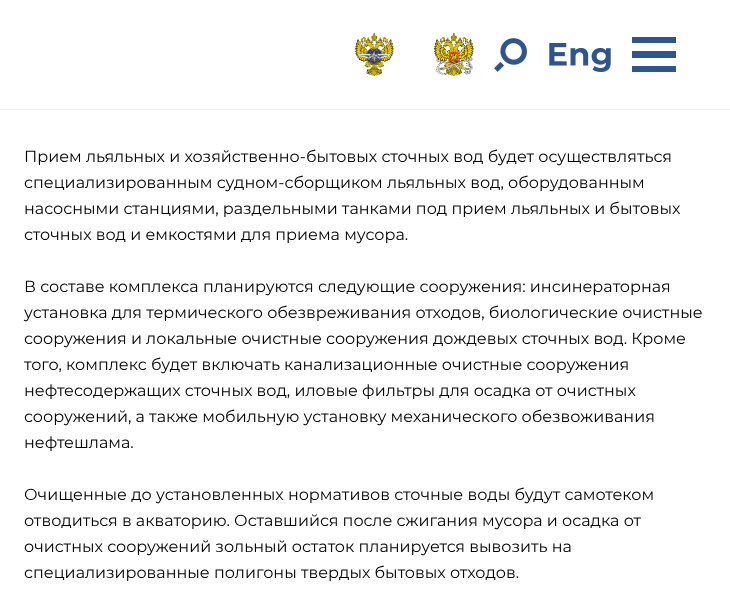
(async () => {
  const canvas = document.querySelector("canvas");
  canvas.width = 730;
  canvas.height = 611;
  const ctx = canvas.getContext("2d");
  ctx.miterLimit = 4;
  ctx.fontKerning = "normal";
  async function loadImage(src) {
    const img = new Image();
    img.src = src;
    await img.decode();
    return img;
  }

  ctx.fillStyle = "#ffffff";
  ctx.fillRect(0, 0, 730, 611);
  ctx.drawImage(await loadImage("img/1.png"), 355, 33, 39, 43);
  ctx.drawImage(await loadImage("img/2.png"), 434, 33, 40, 43);
  ctx.drawImage(await loadImage("img/3.png"), 494, 38, 33, 34);
  ctx.drawImage(await loadImage("img/4.png"), 549, 43, 62, 29);
  for (const [x, y, w, h, color] of [
    [632, 37, 44, 6, "#2f558e"],
    [632, 51, 44, 7, "#2f558e"],
    [632, 66, 44, 6, "#2f558e"],
    [0, 109, 730, 1, "#f1f1f1"],
  ]) {
    ctx.fillStyle = color;
    ctx.fillRect(x, y, w, h);
  }
  ctx.font = "16px Montserrat";
  ctx.fillStyle = "#000000";
  for (const [text, x, y] of [
    ["Прием льяльных и хозяйственно-бытовых сточных вод будет осуществляться", 24, 162],
    ["специализированным судном-сборщиком льяльных вод, оборудованным", 24, 188],
    ["насосными станциями, раздельными танками под прием льяльных и бытовых", 24, 214],
    ["сточных вод и емкостями для приема мусора.", 24, 240],
    ["В составе комплекса планируются следующие сооружения: инсинераторная", 24, 292],
    ["установка для термического обезвреживания отходов, биологические очистные", 24, 318],
    ["сооружения и локальные очистные сооружения дождевых сточных вод. Кроме", 24, 344],
    ["того, комплекс будет включать канализационные очистные сооружения", 24, 370],
    ["нефтесодержащих сточных вод, иловые фильтры для осадка от очистных", 24, 396],
    ["сооружений, а также мобильную установку механического обезвоживания", 24, 422],
    ["нефтешлама.", 24, 448],
    ["Очищенные до установленных нормативов сточные воды будут самотеком", 24, 500],
    ["отводиться в акваторию. Оставшийся после сжигания мусора и осадка от", 24, 526],
    ["очистных сооружений зольный остаток планируется вывозить на", 24, 552],
    ["специализированные полигоны твердых бытовых отходов.", 24, 578],
  ]) {
    ctx.fillText(text, x, y);
  }
})();
